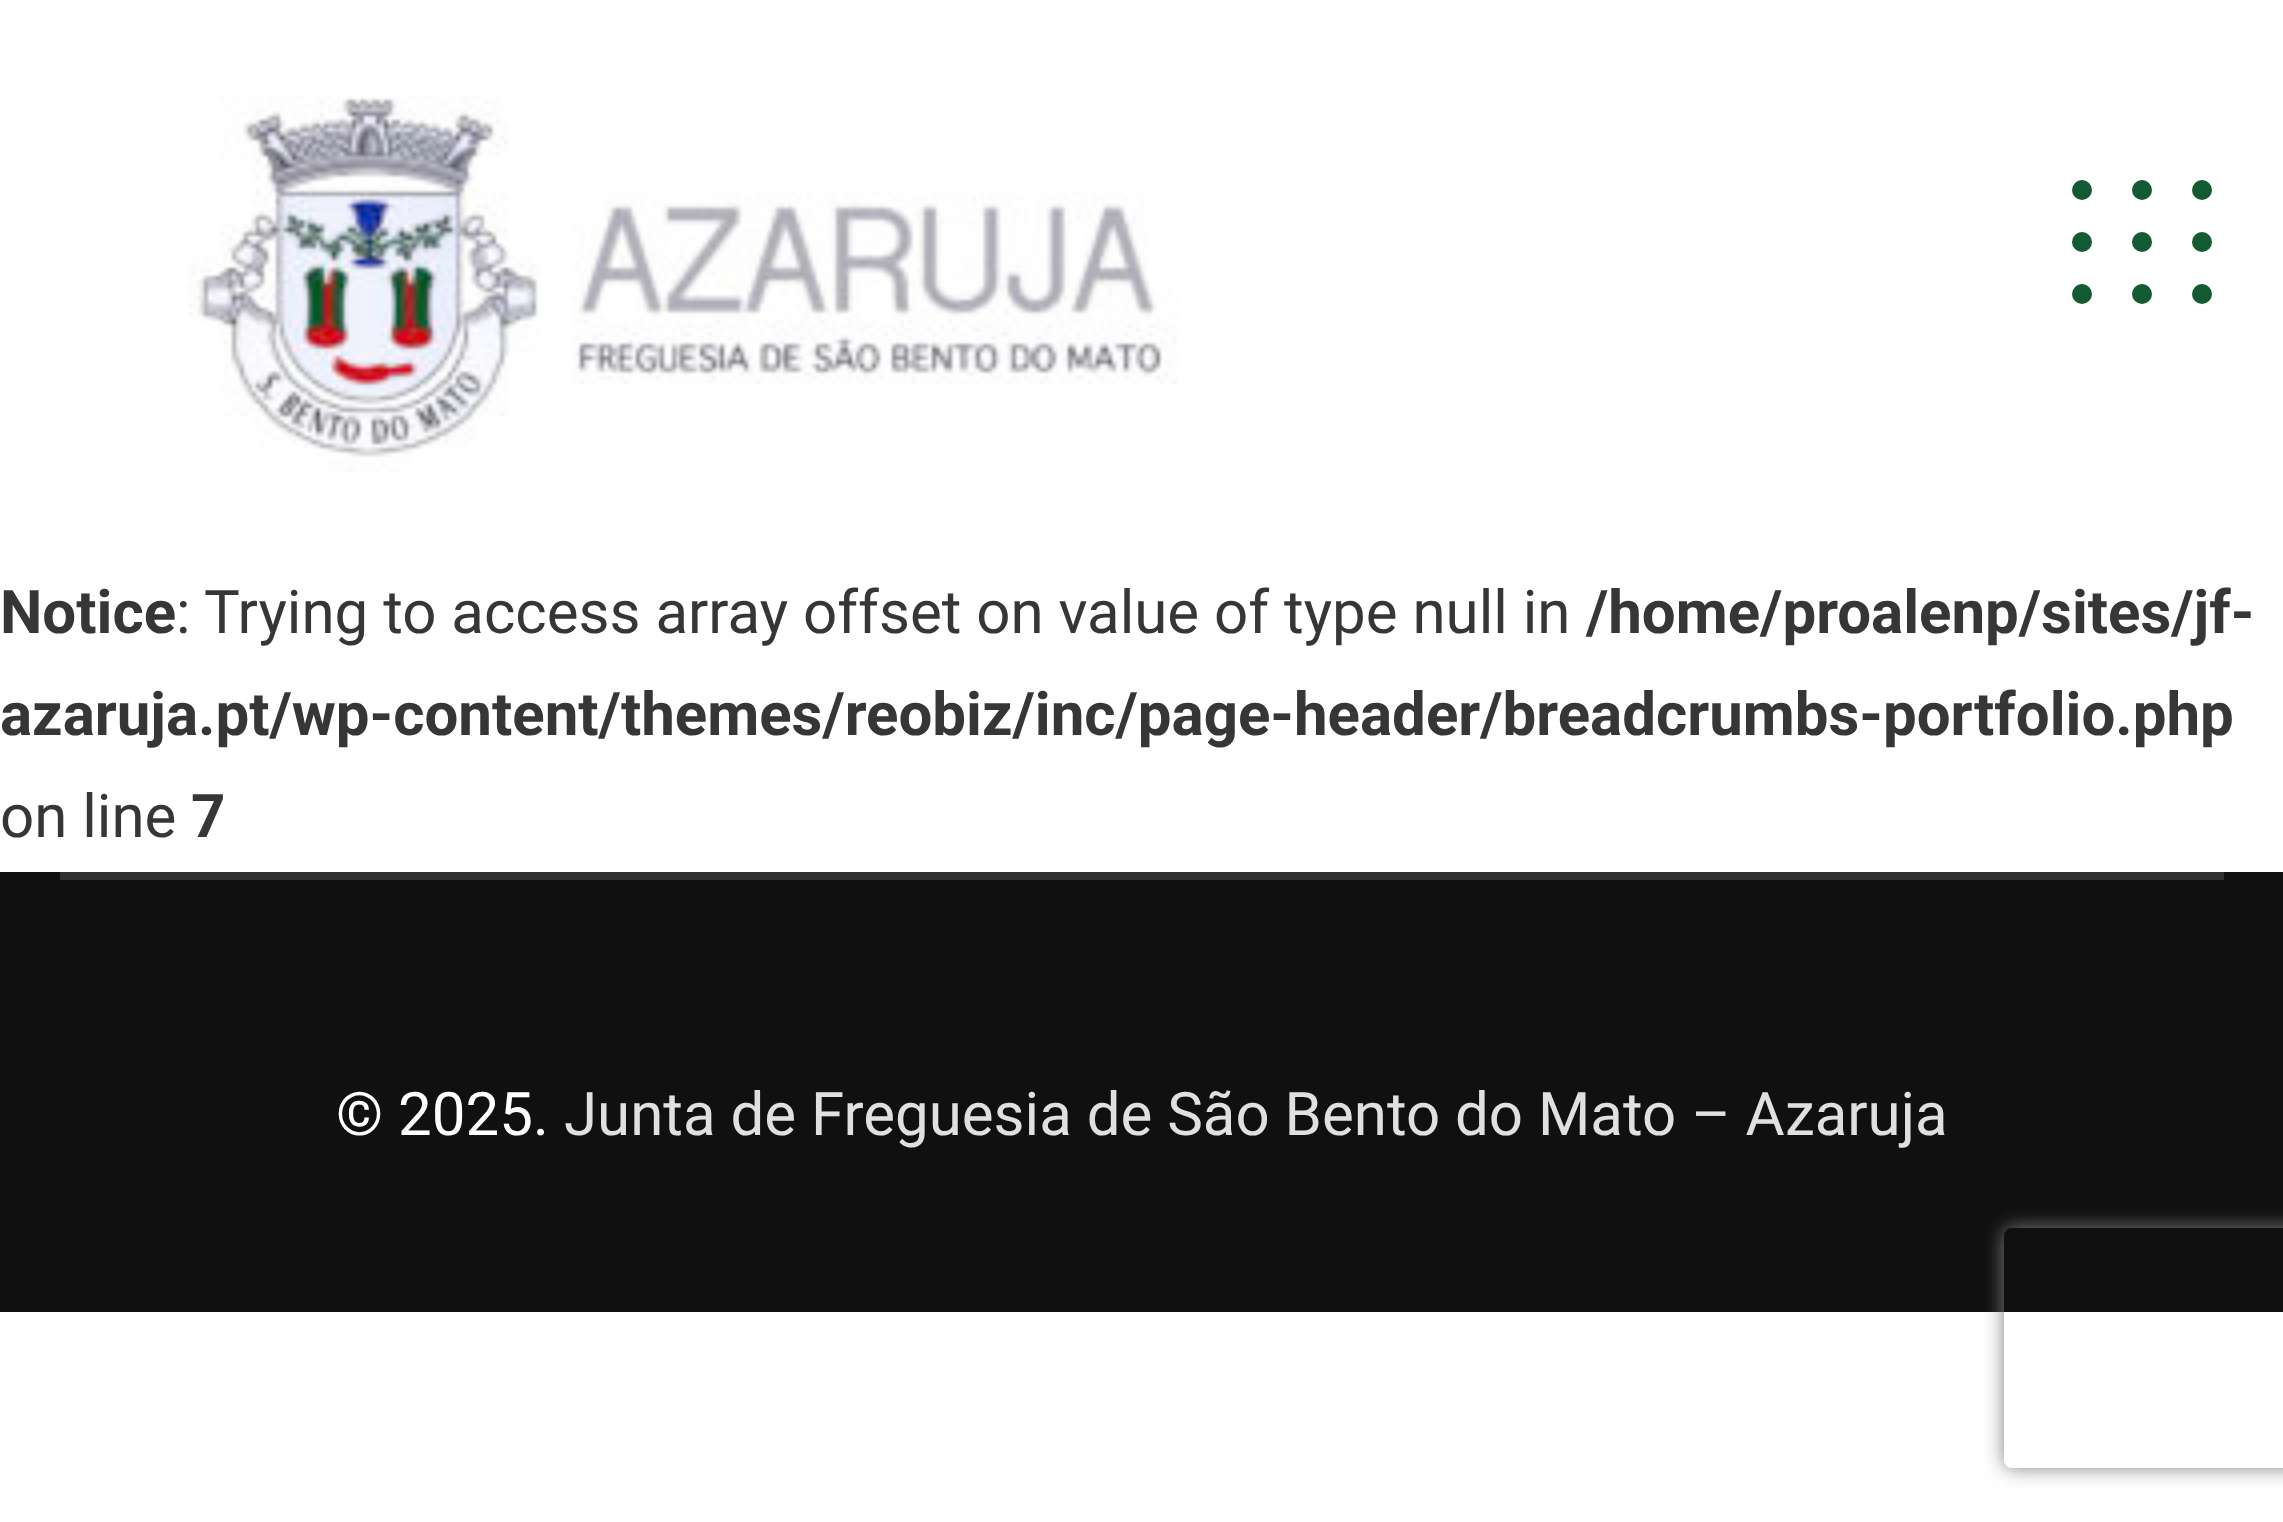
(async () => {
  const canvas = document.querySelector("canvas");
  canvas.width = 2283;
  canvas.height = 1522;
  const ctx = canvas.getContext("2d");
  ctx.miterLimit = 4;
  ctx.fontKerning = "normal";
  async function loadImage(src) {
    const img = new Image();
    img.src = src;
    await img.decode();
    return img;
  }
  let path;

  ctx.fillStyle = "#ffffff";
  ctx.fillRect(0, 0, 2283, 1522);
  ctx.drawImage(await loadImage("img/1.png"), 187, 96, 992, 376);
  ctx.fillStyle = "#145b32";
  ctx.beginPath();
  ctx.arc(2082, 190, 10, 0, Math.PI * 2);
  ctx.fill();
  ctx.beginPath();
  ctx.arc(2142, 190, 10, 0, Math.PI * 2);
  ctx.fill();
  ctx.beginPath();
  ctx.arc(2202, 190, 10, 0, Math.PI * 2);
  ctx.fill();
  ctx.beginPath();
  ctx.arc(2082, 242, 10, 0, Math.PI * 2);
  ctx.fill();
  ctx.beginPath();
  ctx.arc(2142, 242, 10, 0, Math.PI * 2);
  ctx.fill();
  ctx.beginPath();
  ctx.arc(2202, 242, 10, 0, Math.PI * 2);
  ctx.fill();
  ctx.beginPath();
  ctx.arc(2082, 294, 10, 0, Math.PI * 2);
  ctx.fill();
  ctx.beginPath();
  ctx.arc(2142, 294, 10, 0, Math.PI * 2);
  ctx.fill();
  ctx.beginPath();
  ctx.arc(2202, 294, 10, 0, Math.PI * 2);
  ctx.fill();
  ctx.fillStyle = "#101010";
  ctx.fillRect(0, 872, 2283, 440);
  ctx.fillStyle = "#303133";
  ctx.fillRect(60, 872, 2164, 8);
  ctx.save();
  path = new Path2D("M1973 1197H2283V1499H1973ZM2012 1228H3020C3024.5 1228 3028 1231.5 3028 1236V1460C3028 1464.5 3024.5 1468 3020 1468H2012C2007.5 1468 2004 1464.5 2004 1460V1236C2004 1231.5 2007.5 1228 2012 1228Z");
  ctx.clip(path, "evenodd");
  ctx.fillStyle = "#808080";
  ctx.filter = "blur(10px)";
  ctx.beginPath();
  ctx.roundRect(2004, 1228, 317, 240, 8);
  ctx.fill();
  ctx.filter = "none";
  ctx.restore();
  ctx.font = "bold 60px Roboto";
  ctx.fillStyle = "#363636";
  ctx.fillText("Notice", 0, 633);
  ctx.font = "60px Roboto";
  ctx.fillText(":", 176, 633);
  ctx.fillText("Trying to access array offset on value of type null in", 204, 633);
  ctx.font = "bold 60px Roboto";
  ctx.fillText("/home/proalenp/sites/jf-", 1586, 633);
  ctx.fillText("azaruja.pt/wp-content/themes/reobiz/inc/page-header/breadcrumbs-portfolio.php", 0, 735);
  ctx.font = "60px Roboto";
  ctx.fillText("on line", 0, 837);
  ctx.font = "bold 60px Roboto";
  ctx.fillText("7", 191, 837);
  ctx.font = "60px Roboto";
  ctx.fillStyle = "#ffffff";
  ctx.fillText("© 2025.", 336, 1135);
  ctx.fillStyle = "#e0e0e0";
  ctx.fillText("Junta de Freguesia de São Bento do Mato – Azaruja", 564, 1135);
})();
